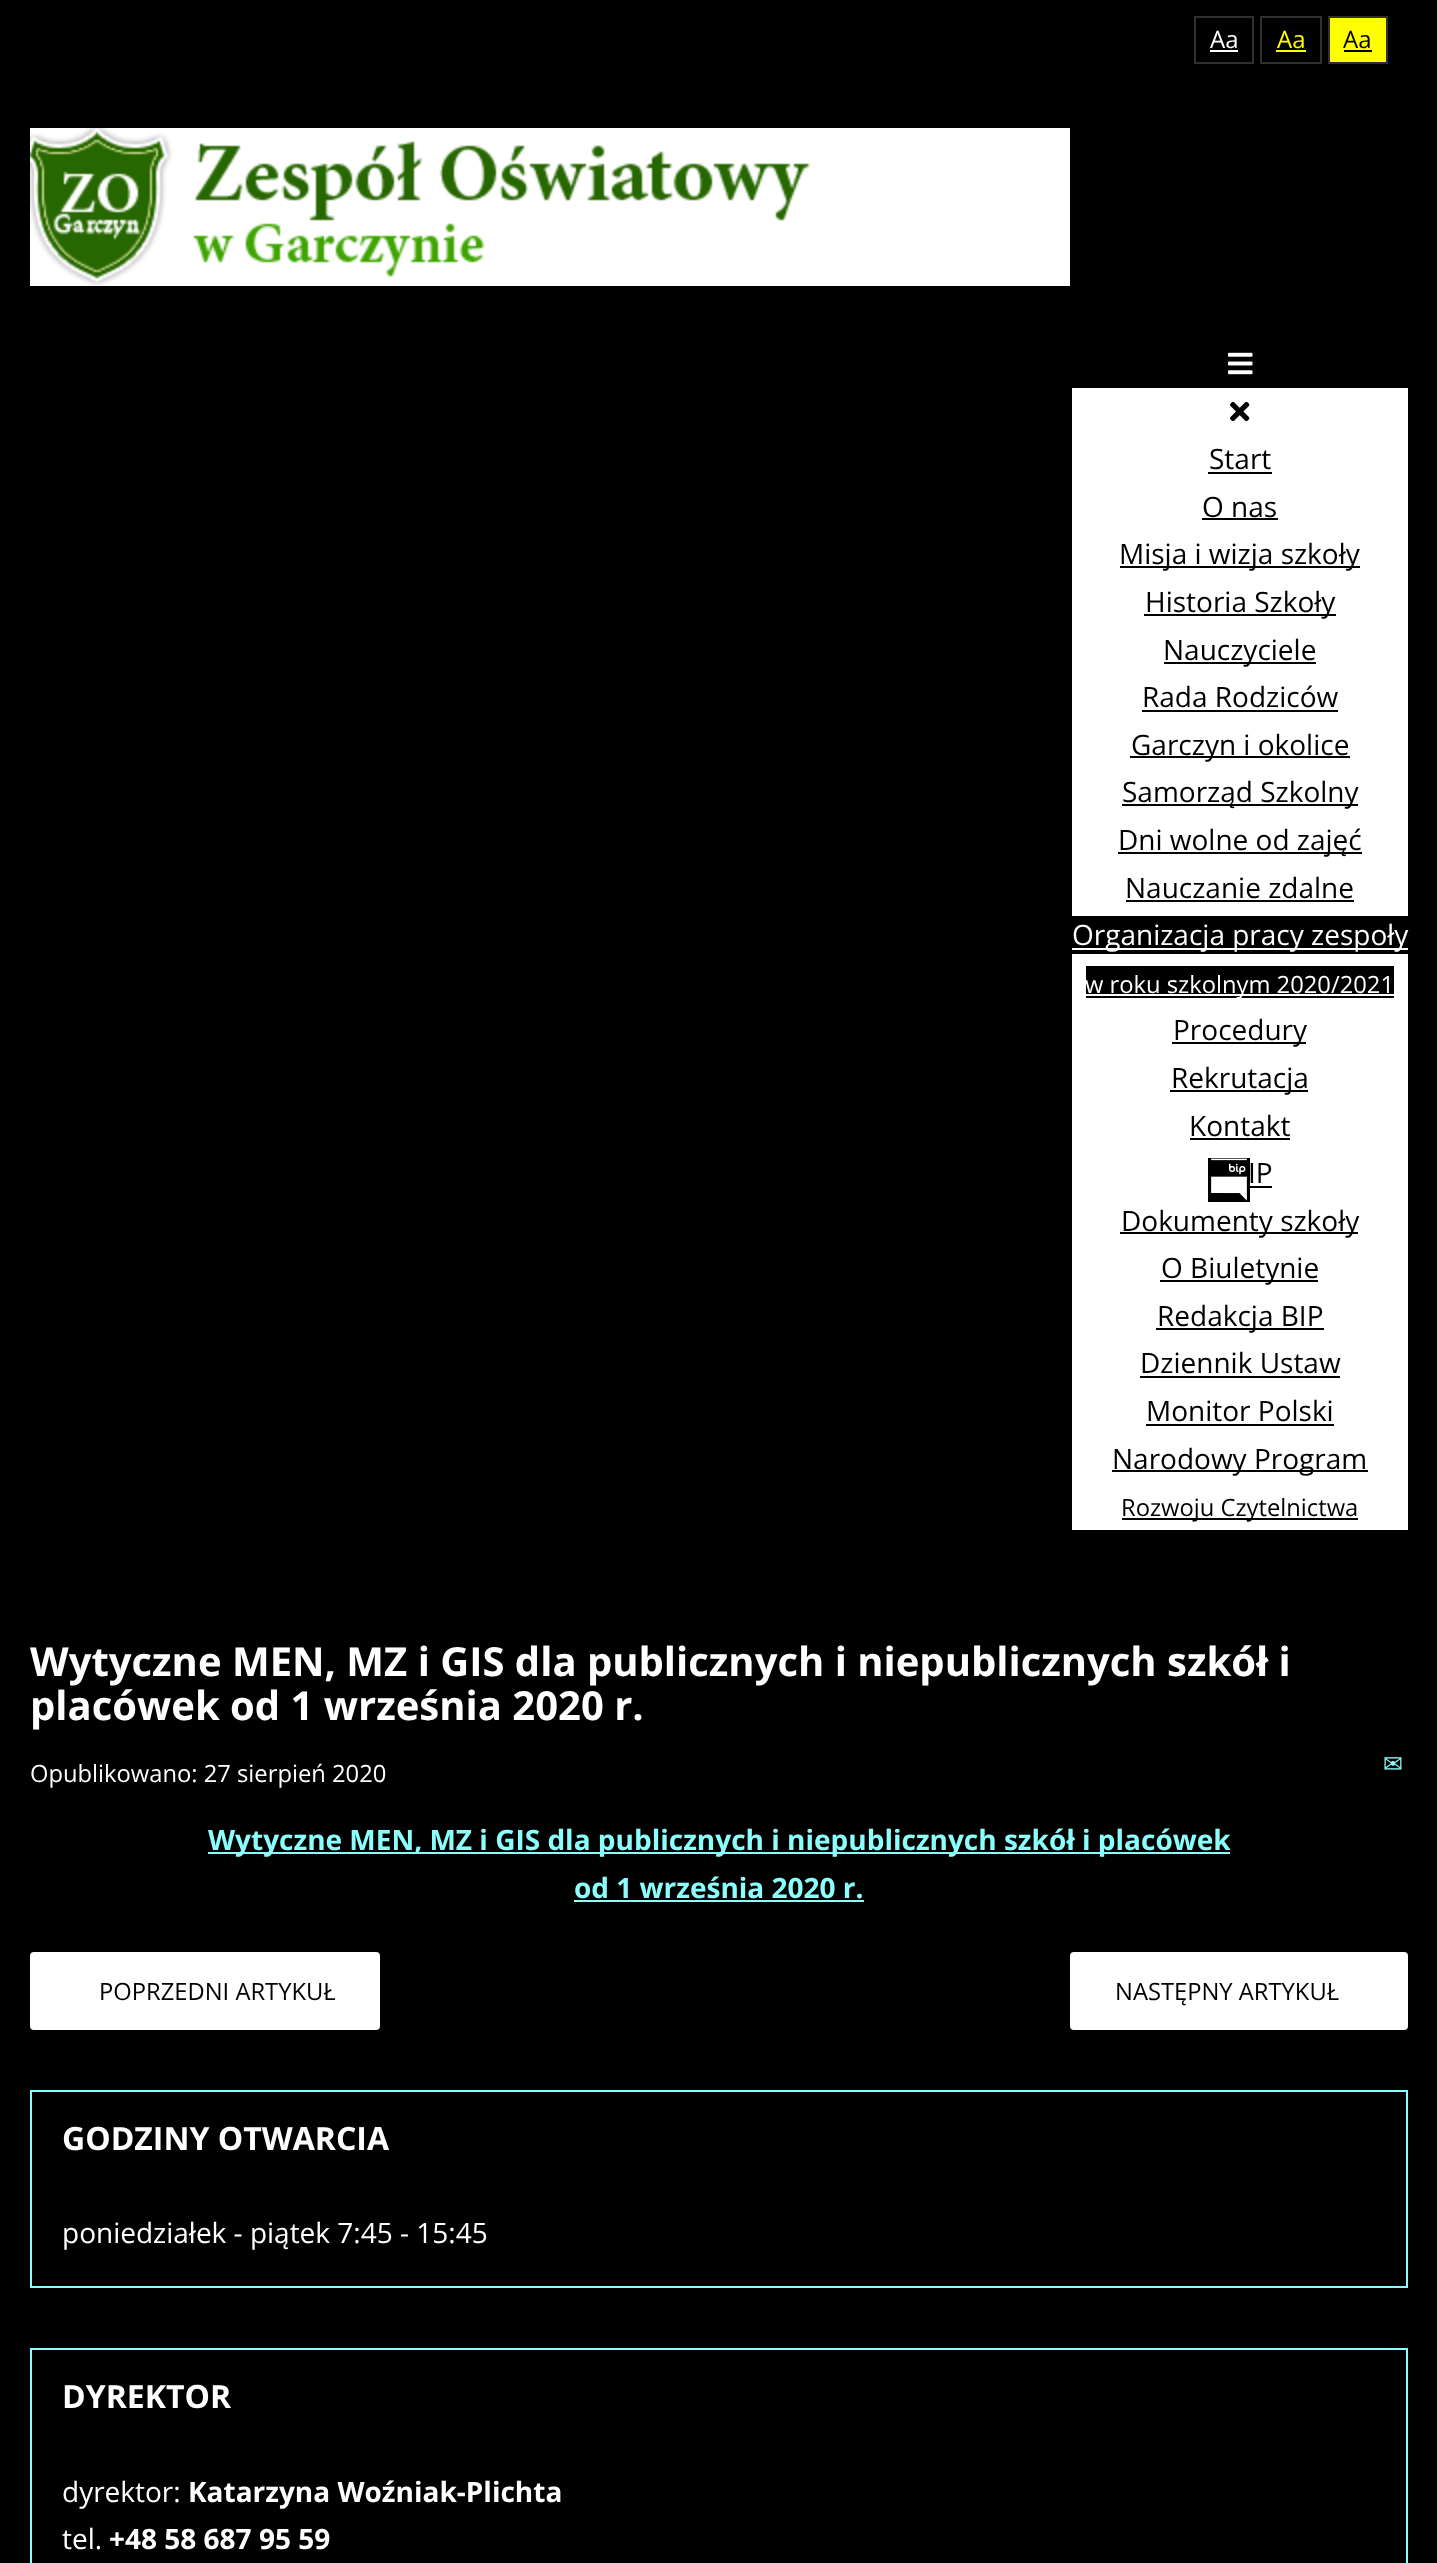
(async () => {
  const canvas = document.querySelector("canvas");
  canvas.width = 1437;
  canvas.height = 2563;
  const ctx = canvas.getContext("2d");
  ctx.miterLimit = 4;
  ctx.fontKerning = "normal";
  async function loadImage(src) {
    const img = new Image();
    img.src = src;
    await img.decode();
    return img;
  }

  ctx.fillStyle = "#000000";
  ctx.fillRect(0, 0, 1437, 2563);
  ctx.strokeStyle = "#303030";
  ctx.lineWidth = 2;
  ctx.strokeRect(1195, 17, 58, 46);
  ctx.fillStyle = "#ffffff";
  ctx.fillRect(1210, 50, 28, 2);
  ctx.strokeRect(1261, 17, 60, 46);
  ctx.fillStyle = "#ffff00";
  ctx.fillRect(1276, 50, 30, 2);
  ctx.beginPath();
  ctx.rect(1329, 17, 58, 46);
  ctx.fill();
  ctx.stroke();
  ctx.fillStyle = "#000000";
  ctx.fillRect(1344, 50, 28, 2);
  ctx.fillStyle = "#ffffff";
  ctx.fillRect(30, 128, 1040, 158);
  ctx.drawImage(await loadImage("img/1.png"), 30, 128, 781, 158);
  ctx.drawImage(await loadImage("img/2.png"), 1228, 352, 25, 23);
  ctx.fillRect(1072, 388, 336, 1142);
  ctx.drawImage(await loadImage("img/3.png"), 1230, 401, 20, 21);
  for (const [x, y, w, h, color] of [
    [1208, 472, 64, 2, "#000000"],
    [1202, 518, 76, 2, "#000000"],
    [1120, 566, 240, 2, "#000000"],
    [1144, 614, 192, 2, "#000000"],
    [1164, 662, 152, 2, "#000000"],
    [1142, 710, 196, 2, "#000000"],
    [1130, 756, 220, 2, "#000000"],
    [1122, 804, 236, 2, "#000000"],
    [1118, 852, 244, 2, "#000000"],
    [1126, 900, 228, 2, "#000000"],
    [1072, 916, 336, 38, "#000000"],
    [1072, 948, 336, 2, "#ffffff"],
    [1086, 966, 308, 32, "#000000"],
    [1086, 994, 308, 2, "#ffffff"],
    [1172, 1042, 134, 2, "#000000"],
    [1170, 1090, 138, 2, "#000000"],
    [1190, 1138, 100, 2, "#000000"],
    [1208, 1158, 42, 44, "#000000"],
  ]) {
    ctx.fillStyle = color;
    ctx.fillRect(x, y, w, h);
  }
  ctx.drawImage(await loadImage("img/4.png"), 1211, 1158, 36, 43);
  for (const [x, y, w, h, color] of [
    [1250, 1186, 22, 2, "#000000"],
    [1120, 1232, 238, 2, "#000000"],
    [1160, 1280, 158, 2, "#000000"],
    [1156, 1328, 168, 2, "#000000"],
    [1140, 1376, 200, 2, "#000000"],
    [1146, 1424, 188, 2, "#000000"],
    [1112, 1470, 256, 2, "#000000"],
    [1122, 1518, 236, 2, "#000000"],
    [208, 1852, 1022, 2, "#8bfffb"],
    [574, 1900, 290, 2, "#8bfffb"],
  ]) {
    ctx.fillStyle = color;
    ctx.fillRect(x, y, w, h);
  }
  ctx.fillStyle = "#ffffff";
  ctx.beginPath();
  ctx.roundRect(32, 1954, 346, 74, 2);
  ctx.fill();
  ctx.strokeStyle = "#ffffff";
  ctx.lineWidth = 4;
  ctx.stroke();
  ctx.beginPath();
  ctx.roundRect(1072, 1954, 334, 74, 2);
  ctx.fill();
  ctx.stroke();
  ctx.strokeStyle = "#8bfffb";
  ctx.lineWidth = 2;
  ctx.strokeRect(31, 2091, 1376, 196);
  ctx.strokeRect(31, 2349, 1376, 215);
  ctx.font = "24px Open Sans";
  ctx.fillText("Aa", 1210, 48);
  ctx.fillStyle = "#ffff00";
  ctx.fillText("Aa", 1277, 48);
  ctx.fillStyle = "#000000";
  ctx.fillText("Aa", 1343, 48);
  ctx.font = "28px Open Sans";
  for (const [text, x, y] of [
    ["Start", 1209, 469],
    ["O nas", 1202, 517],
    ["Misja i wizja szkoły", 1119, 564],
    ["Historia Szkoły", 1145, 612],
    ["Nauczyciele", 1163, 660],
    ["Rada Rodziców", 1142, 707],
    ["Garczyn i okolice", 1131, 755],
    ["Samorząd Szkolny", 1122, 802],
    ["Dni wolne od zajęć", 1118, 850],
    ["Nauczanie zdalne", 1125, 898],
  ]) {
    ctx.fillText(text, x, y);
  }
  ctx.fillStyle = "#ffffff";
  ctx.fillText("Organizacja pracy zespoły", 1072, 945);
  ctx.font = "23.75px Open Sans";
  ctx.fillText("w roku szkolnym 2020/2021", 1085, 993);
  ctx.font = "28px Open Sans";
  ctx.fillStyle = "#000000";
  for (const [text, x, y] of [
    ["Procedury", 1173, 1040],
    ["Rekrutacja", 1171, 1088],
    ["Kontakt", 1189, 1136],
    ["IP", 1248, 1183],
    ["Dokumenty szkoły", 1121, 1231],
    ["O Biuletynie", 1161, 1278],
    ["Redakcja BIP", 1157, 1326],
    ["Dziennik Ustaw", 1140, 1373],
    ["Monitor Polski", 1146, 1421],
    ["Narodowy Program", 1112, 1469],
  ]) {
    ctx.fillText(text, x, y);
  }
  ctx.font = "23.75px Open Sans";
  ctx.fillText("Rozwoju Czytelnictwa", 1121, 1516);
  ctx.font = "bold 40px Open Sans";
  ctx.fillStyle = "#ffffff";
  ctx.fillText("Wytyczne MEN, MZ i GIS dla publicznych i niepublicznych szkół i", 30, 1676);
  ctx.fillText("placówek od 1 września 2020 r.", 30, 1720);
  ctx.font = "23.75px Open Sans";
  ctx.fillText("Opublikowano: 27 sierpień 2020", 30, 1782);
  ctx.font = "23.75px DejaVu Sans";
  ctx.fillStyle = "#8bfffb";
  ctx.fillText("✉", 1383, 1772);
  ctx.font = "bold 28px Open Sans";
  ctx.fillText("Wytyczne MEN, MZ i GIS dla publicznych i niepublicznych szkół i placówek", 208, 1850);
  ctx.fillText("od 1 września 2020 r.", 574, 1898);
  ctx.font = "23.75px Open Sans";
  ctx.fillStyle = "#000000";
  ctx.fillText("POPRZEDNI ARTYKUŁ", 99, 2000);
  ctx.fillText("NASTĘPNY ARTYKUŁ", 1115, 2000);
  ctx.font = "bold 32px Open Sans";
  ctx.fillStyle = "#ffffff";
  ctx.fillText("GODZINY OTWARCIA", 62, 2150);
  ctx.font = "28px Open Sans";
  ctx.fillText("poniedziałek - piątek 7:45 - 15:45", 62, 2243);
  ctx.font = "bold 32px Open Sans";
  ctx.fillText("DYREKTOR", 62, 2408);
  ctx.font = "28px Open Sans";
  ctx.fillText("dyrektor:", 62, 2502);
  ctx.font = "bold 28px Open Sans";
  ctx.fillText("Katarzyna Woźniak-Plichta", 188, 2502);
  ctx.font = "28px Open Sans";
  ctx.fillText("tel.", 62, 2549);
  ctx.font = "bold 28px Open Sans";
  ctx.fillText("+48 58 687 95 59", 109, 2549);
})();
